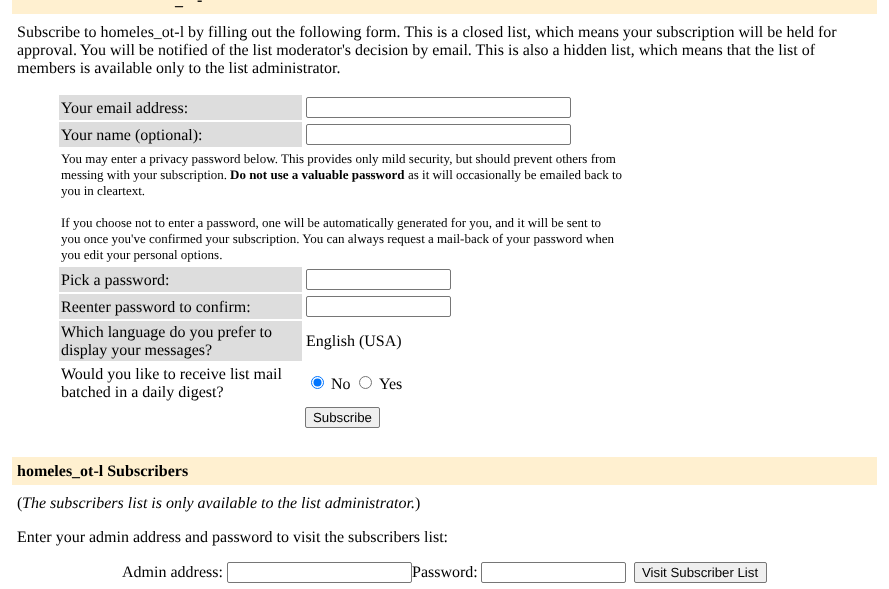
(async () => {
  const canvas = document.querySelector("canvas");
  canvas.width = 889;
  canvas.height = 589;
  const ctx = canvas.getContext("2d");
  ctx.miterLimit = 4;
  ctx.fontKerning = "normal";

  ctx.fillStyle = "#ffffff";
  ctx.fillRect(0, 0, 889, 589);
  ctx.fillStyle = "#fff0d0";
  ctx.fillRect(12, 0, 865, 14);
  ctx.fillStyle = "#dddddd";
  ctx.fillRect(59, 95, 243, 25);
  ctx.beginPath();
  ctx.roundRect(306.5, 97.5, 264, 20, 1.5);
  ctx.strokeStyle = "#767676";
  ctx.stroke();
  ctx.fillRect(59, 122, 243, 25);
  ctx.beginPath();
  ctx.roundRect(306.5, 124.5, 264, 20, 1.5);
  ctx.stroke();
  ctx.fillRect(59, 267, 243, 25);
  ctx.beginPath();
  ctx.roundRect(306.5, 269.5, 144, 20, 1.5);
  ctx.stroke();
  ctx.fillRect(59, 294, 243, 25);
  ctx.beginPath();
  ctx.roundRect(306.5, 296.5, 144, 20, 1.5);
  ctx.stroke();
  ctx.fillRect(59, 321, 243, 40);
  ctx.beginPath();
  ctx.arc(317.5, 382.5, 6, 0, Math.PI * 2);
  ctx.strokeStyle = "#0075ff";
  ctx.stroke();
  ctx.fillStyle = "#0075ff";
  ctx.beginPath();
  ctx.arc(317.5, 382.5, 4, 0, Math.PI * 2);
  ctx.fill();
  ctx.beginPath();
  ctx.arc(365.5, 382.5, 6, 0, Math.PI * 2);
  ctx.strokeStyle = "#767676";
  ctx.stroke();
  ctx.fillStyle = "#efefef";
  ctx.beginPath();
  ctx.roundRect(305.5, 407.5, 74, 20, 1.5);
  ctx.fill();
  ctx.stroke();
  ctx.fillStyle = "#fff0d0";
  ctx.fillRect(12, 457, 865, 28);
  ctx.beginPath();
  ctx.roundRect(227.5, 562.5, 184, 20, 1.5);
  ctx.stroke();
  ctx.beginPath();
  ctx.roundRect(481.5, 562.5, 144, 20, 1.5);
  ctx.stroke();
  ctx.fillStyle = "#efefef";
  ctx.beginPath();
  ctx.roundRect(634.5, 562.5, 132, 20, 1.5);
  ctx.fill();
  ctx.stroke();
  ctx.font = "bold 16px Liberation Serif";
  ctx.fillStyle = "#000000";
  ctx.fillText("-", 197, 5);
  ctx.fillText("_", 175, 5);
  ctx.font = "16px Liberation Serif";
  for (const [text, x, y] of [
    ["Subscribe to homeles_ot-l by filling out the following form. This is a closed list, which means your subscription will be held for", 17, 37],
    ["approval.", 17, 55],
    ["You will be notified of the list moderator's decision by email. This is also a hidden list, which means that the list of", 80, 55],
    ["members is available only to the list administrator.", 17, 73],
    ["Your email address:", 61, 113],
    ["Your name (optional):", 61, 140],
  ]) {
    ctx.fillText(text, x, y);
  }
  ctx.font = "13px Liberation Serif";
  ctx.fillText("You may enter a privacy password below. This provides only mild security, but should prevent others from", 61, 163);
  ctx.fillText("messing with your subscription.", 61, 179);
  ctx.font = "bold 13px Liberation Serif";
  ctx.fillText("Do not use a valuable password", 230, 179);
  ctx.font = "13px Liberation Serif";
  for (const [text, x, y] of [
    ["as it will occasionally be emailed back to", 408, 179],
    ["you in cleartext.", 61, 195],
    ["If you choose not to enter a password, one will be automatically generated for you, and it will be sent to", 61, 227],
    ["you once you've confirmed your subscription. You can always request a mail-back of your password when", 61, 243],
    ["you edit your personal options.", 61, 259],
  ]) {
    ctx.fillText(text, x, y);
  }
  ctx.font = "16px Liberation Serif";
  for (const [text, x, y] of [
    ["Pick a password:", 61, 285],
    ["Reenter password to confirm:", 61, 312],
    ["Which language do you prefer to", 61, 337],
    ["display your messages?", 61, 355],
    ["English (USA)", 306, 346],
    ["Would you like to receive list mail", 61, 379],
    ["batched in a daily digest?", 61, 397],
    ["No", 331, 389],
    ["Yes", 379, 389],
  ]) {
    ctx.fillText(text, x, y);
  }
  ctx.font = "13.25px Liberation Sans";
  ctx.fillText("Subscribe", 313, 422);
  ctx.font = "bold 16px Liberation Serif";
  ctx.fillText("homeles_ot-l Subscribers", 17, 476);
  ctx.font = "16px Liberation Serif";
  ctx.fillText("(", 17, 508);
  ctx.font = "italic 16px Liberation Serif";
  ctx.fillText("The subscribers list is only available to the list administrator.", 22, 508);
  ctx.font = "16px Liberation Serif";
  for (const [text, x, y] of [
    [")", 415, 508],
    ["Enter your admin address and password to visit the subscribers list:", 17, 542],
    ["Admin address:", 122, 577],
    ["Password:", 412, 577],
  ]) {
    ctx.fillText(text, x, y);
  }
  ctx.font = "13.25px Liberation Sans";
  ctx.fillText("Visit Subscriber List", 642, 577);
})();
